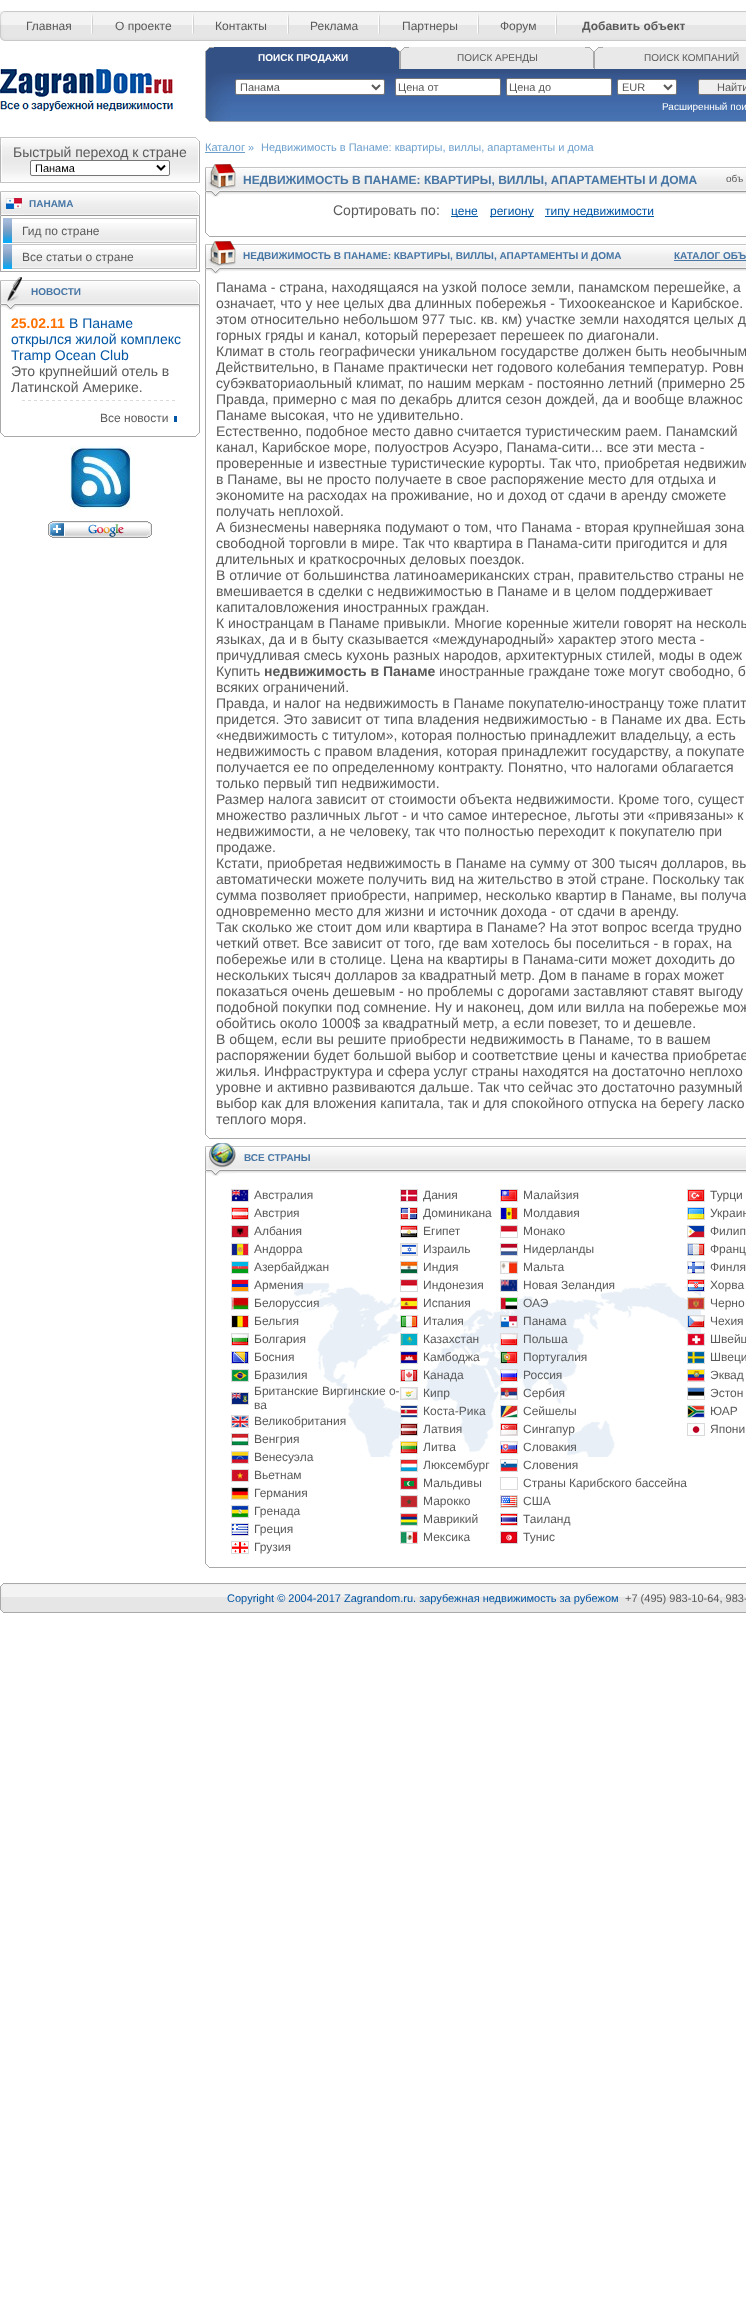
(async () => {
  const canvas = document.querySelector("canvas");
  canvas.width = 746;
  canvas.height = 2298;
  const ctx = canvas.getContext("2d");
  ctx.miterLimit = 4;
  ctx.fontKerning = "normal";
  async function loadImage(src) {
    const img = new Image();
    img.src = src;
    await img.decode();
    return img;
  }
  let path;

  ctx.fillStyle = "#ffffff";
  ctx.fillRect(0, 0, 746, 2298);
  ctx.drawImage(await loadImage("img/1.png"), 5, 11, 741, 30);
  ctx.drawImage(await loadImage("img/2.png"), 0, 11, 5, 30);
  ctx.drawImage(await loadImage("img/3.png"), 91, 14, 2, 20);
  ctx.drawImage(await loadImage("img/3.png"), 192, 14, 2, 20);
  ctx.drawImage(await loadImage("img/3.png"), 287, 14, 2, 20);
  ctx.drawImage(await loadImage("img/3.png"), 378, 14, 2, 20);
  ctx.drawImage(await loadImage("img/3.png"), 477, 14, 2, 20);
  ctx.drawImage(await loadImage("img/3.png"), 555, 14, 2, 20);
  ctx.drawImage(await loadImage("img/4.png"), 0, 69, 173, 42);
  ctx.drawImage(await loadImage("img/5.png"), 205, 47, 9, 22);
  ctx.fillStyle = "#345185";
  ctx.fillRect(214, 47, 177, 22);
  ctx.drawImage(await loadImage("img/6.png"), 391, 47, 9, 22);
  ctx.drawImage(await loadImage("img/7.png"), 400, 47, 9, 22);
  ctx.fillStyle = "#e9e9e9";
  ctx.fillRect(409, 47, 176, 22);
  ctx.drawImage(await loadImage("img/8.png"), 585, 47, 9, 22);
  ctx.drawImage(await loadImage("img/7.png"), 594, 47, 9, 22);
  ctx.fillRect(603, 47, 143, 22);
  ctx.drawImage(await loadImage("img/9.png"), 205, 69, 541, 52);
  ctx.fillStyle = "#a9a9a9";
  ctx.fillRect(206, 121, 540, 1);
  ctx.drawImage(await loadImage("img/10.png"), 205, 118, 4, 4);
  ctx.fillStyle = "#ffffff";
  ctx.beginPath();
  ctx.roundRect(235.5, 79.5, 149, 15, 1.5);
  ctx.fill();
  ctx.strokeStyle = "#767676";
  ctx.stroke();
  path = new Path2D("M372 85L376 89L380 85");
  ctx.strokeStyle = "#5a5a5a";
  ctx.lineWidth = 2;
  ctx.stroke(path);
  ctx.beginPath();
  ctx.roundRect(395.5, 78.5, 105, 17, 1.5);
  ctx.fill();
  ctx.strokeStyle = "#767676";
  ctx.lineWidth = 1;
  ctx.stroke();
  ctx.beginPath();
  ctx.roundRect(506.5, 78.5, 105, 17, 1.5);
  ctx.fill();
  ctx.stroke();
  ctx.beginPath();
  ctx.roundRect(617.5, 79.5, 59, 15, 1.5);
  ctx.fill();
  ctx.stroke();
  path = new Path2D("M664 85L668 89L672 85");
  ctx.strokeStyle = "#5a5a5a";
  ctx.lineWidth = 2;
  ctx.stroke(path);
  ctx.fillStyle = "#efefef";
  ctx.beginPath();
  ctx.roundRect(698.5, 79.5, 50, 15, 1.5);
  ctx.fill();
  ctx.strokeStyle = "#767676";
  ctx.lineWidth = 1;
  ctx.stroke();
  ctx.fillStyle = "#b9b9b9";
  ctx.fillRect(0, 181, 1, 1);
  ctx.drawImage(await loadImage("img/11.png"), 0, 137, 5, 44);
  ctx.drawImage(await loadImage("img/12.png"), 5, 137, 190, 44);
  ctx.fillStyle = "#ffffff";
  ctx.beginPath();
  ctx.roundRect(30.5, 160.5, 139, 15, 1.5);
  ctx.fill();
  ctx.stroke();
  path = new Path2D("M157 165.5L161 169.5L165 165.5");
  ctx.strokeStyle = "#000000";
  ctx.lineWidth = 2;
  ctx.stroke(path);
  ctx.drawImage(await loadImage("img/13.png"), 195, 137, 5, 45);
  ctx.fillStyle = "#c5c5c5";
  ctx.fillRect(0, 182, 200, 1);
  ctx.drawImage(await loadImage("img/14.png"), 24, 191, 171, 25);
  ctx.drawImage(await loadImage("img/15.png"), 195, 191, 5, 27);
  ctx.drawImage(await loadImage("img/16.png"), 0, 191, 24, 27);
  ctx.drawImage(await loadImage("img/17.png"), 6, 198, 16, 11);
  for (const [x, y, w, h, color] of [
    [199, 218, 1, 53, "#a9a9a9"],
    [0, 218, 1, 53, "#a9a9a9"],
    [3, 218, 9, 1, "#a5bcdd"],
    [12, 218, 185, 1, "#c5c5c5"],
  ]) {
    ctx.fillStyle = color;
    ctx.fillRect(x, y, w, h);
  }
  ctx.drawImage(await loadImage("img/18.png"), 3, 219, 9, 24);
  ctx.drawImage(await loadImage("img/19.png"), 12, 223, 184, 20);
  for (const [x, y, w, h, color] of [
    [196, 219, 1, 24, "#c5c5c5"],
    [3, 244, 9, 1, "#a5bcdd"],
    [12, 244, 185, 1, "#c5c5c5"],
  ]) {
    ctx.fillStyle = color;
    ctx.fillRect(x, y, w, h);
  }
  ctx.drawImage(await loadImage("img/18.png"), 3, 245, 9, 24);
  ctx.drawImage(await loadImage("img/19.png"), 12, 249, 184, 20);
  ctx.fillRect(196, 245, 1, 24);
  ctx.fillStyle = "#a9a9a9";
  ctx.fillRect(0, 271, 200, 1);
  ctx.drawImage(await loadImage("img/20.png"), 22, 280, 173, 27);
  ctx.drawImage(await loadImage("img/21.png"), 195, 280, 5, 30);
  ctx.drawImage(await loadImage("img/22.png"), 0, 277, 22, 33);
  ctx.fillRect(199, 310, 1, 123);
  ctx.fillRect(0, 310, 1, 123);
  ctx.drawImage(await loadImage("img/23.png"), 22, 400, 153, 1);
  ctx.fillStyle = "#0055a4";
  ctx.fillRect(174, 416, 3, 6);
  ctx.fillStyle = "#a9a9a9";
  ctx.fillRect(0, 436, 200, 1);
  ctx.drawImage(await loadImage("img/24.png"), 0, 433, 4, 4);
  ctx.drawImage(await loadImage("img/25.png"), 196, 433, 4, 4);
  ctx.drawImage(await loadImage("img/26.png"), 70, 446, 61, 64);
  ctx.drawImage(await loadImage("img/27.png"), 48, 521, 104, 17);
  ctx.fillStyle = "#6d9fcc";
  ctx.fillRect(205, 152, 40, 1);
  ctx.drawImage(await loadImage("img/28.png"), 236, 167, 510, 27);
  ctx.drawImage(await loadImage("img/29.png"), 205, 164, 31, 33);
  for (const [x, y, w, h, color] of [
    [205, 197, 1, 36, "#a9a9a9"],
    [451, 216, 27, 1, "#0055a4"],
    [490, 216, 44, 1, "#0055a4"],
    [545, 216, 109, 1, "#0055a4"],
    [205, 236, 541, 1, "#a9a9a9"],
  ]) {
    ctx.fillStyle = color;
    ctx.fillRect(x, y, w, h);
  }
  ctx.drawImage(await loadImage("img/24.png"), 205, 233, 4, 4);
  ctx.drawImage(await loadImage("img/28.png"), 236, 244, 510, 27);
  ctx.drawImage(await loadImage("img/29.png"), 205, 241, 31, 33);
  for (const [x, y, w, h, color] of [
    [674, 260, 72, 1, "#4776a5"],
    [205, 274, 1, 861, "#a9a9a9"],
    [205, 1138, 541, 1, "#a9a9a9"],
  ]) {
    ctx.fillStyle = color;
    ctx.fillRect(x, y, w, h);
  }
  ctx.drawImage(await loadImage("img/24.png"), 205, 1135, 4, 4);
  ctx.drawImage(await loadImage("img/28.png"), 236, 1146, 510, 27);
  ctx.drawImage(await loadImage("img/30.png"), 205, 1143, 31, 33);
  ctx.drawImage(await loadImage("img/31.png"), 294, 1283, 407, 174);
  ctx.fillRect(205, 1176, 1, 388);
  ctx.strokeStyle = "#dadada";
  ctx.lineWidth = 1;
  ctx.strokeRect(231.5, 1189.5, 17, 12);
  ctx.drawImage(await loadImage("img/32.png"), 232, 1190, 16, 11);
  ctx.strokeRect(231.5, 1207.5, 17, 12);
  ctx.drawImage(await loadImage("img/33.png"), 232, 1208, 16, 11);
  ctx.strokeRect(231.5, 1225.5, 17, 12);
  ctx.drawImage(await loadImage("img/34.png"), 232, 1226, 16, 11);
  ctx.strokeRect(231.5, 1243.5, 17, 12);
  ctx.drawImage(await loadImage("img/35.png"), 232, 1244, 16, 11);
  ctx.strokeRect(231.5, 1261.5, 17, 12);
  ctx.drawImage(await loadImage("img/36.png"), 232, 1262, 16, 11);
  ctx.strokeRect(231.5, 1279.5, 17, 12);
  ctx.drawImage(await loadImage("img/37.png"), 232, 1280, 16, 11);
  ctx.strokeRect(231.5, 1297.5, 17, 12);
  ctx.drawImage(await loadImage("img/38.png"), 232, 1298, 16, 11);
  ctx.strokeRect(231.5, 1315.5, 17, 12);
  ctx.drawImage(await loadImage("img/39.png"), 232, 1316, 16, 11);
  ctx.strokeRect(231.5, 1333.5, 17, 12);
  ctx.drawImage(await loadImage("img/40.png"), 232, 1334, 16, 11);
  ctx.strokeRect(231.5, 1351.5, 17, 12);
  ctx.drawImage(await loadImage("img/41.png"), 232, 1352, 16, 11);
  ctx.strokeRect(231.5, 1369.5, 17, 12);
  ctx.drawImage(await loadImage("img/42.png"), 232, 1370, 16, 11);
  ctx.strokeRect(231.5, 1392.5, 17, 12);
  ctx.drawImage(await loadImage("img/43.png"), 232, 1393, 16, 11);
  ctx.strokeRect(231.5, 1415.5, 17, 12);
  ctx.drawImage(await loadImage("img/44.png"), 232, 1416, 16, 11);
  ctx.strokeRect(231.5, 1433.5, 17, 12);
  ctx.drawImage(await loadImage("img/45.png"), 232, 1434, 16, 11);
  ctx.strokeRect(231.5, 1451.5, 17, 12);
  ctx.drawImage(await loadImage("img/46.png"), 232, 1452, 16, 11);
  ctx.strokeRect(231.5, 1469.5, 17, 12);
  ctx.drawImage(await loadImage("img/47.png"), 232, 1470, 16, 11);
  ctx.strokeRect(231.5, 1487.5, 17, 12);
  ctx.drawImage(await loadImage("img/48.png"), 232, 1488, 16, 11);
  ctx.strokeRect(231.5, 1505.5, 17, 12);
  ctx.drawImage(await loadImage("img/49.png"), 232, 1506, 16, 11);
  ctx.strokeRect(231.5, 1523.5, 17, 12);
  ctx.drawImage(await loadImage("img/50.png"), 232, 1524, 16, 11);
  ctx.strokeRect(231.5, 1541.5, 17, 12);
  ctx.drawImage(await loadImage("img/51.png"), 232, 1542, 16, 11);
  ctx.strokeRect(400.5, 1189.5, 17, 12);
  ctx.drawImage(await loadImage("img/52.png"), 401, 1190, 16, 11);
  ctx.strokeRect(400.5, 1207.5, 17, 12);
  ctx.drawImage(await loadImage("img/53.png"), 401, 1208, 16, 11);
  ctx.strokeRect(400.5, 1225.5, 17, 12);
  ctx.drawImage(await loadImage("img/54.png"), 401, 1226, 16, 11);
  ctx.strokeRect(400.5, 1243.5, 17, 12);
  ctx.drawImage(await loadImage("img/55.png"), 401, 1244, 16, 11);
  ctx.strokeRect(400.5, 1261.5, 17, 12);
  ctx.drawImage(await loadImage("img/56.png"), 401, 1262, 16, 11);
  ctx.strokeRect(400.5, 1279.5, 17, 12);
  ctx.drawImage(await loadImage("img/57.png"), 401, 1280, 16, 6);
  ctx.strokeRect(400.5, 1297.5, 17, 12);
  ctx.drawImage(await loadImage("img/58.png"), 401, 1298, 16, 11);
  ctx.strokeRect(400.5, 1315.5, 17, 12);
  ctx.drawImage(await loadImage("img/59.png"), 401, 1316, 16, 11);
  ctx.strokeRect(400.5, 1333.5, 17, 12);
  ctx.drawImage(await loadImage("img/60.png"), 401, 1334, 16, 11);
  ctx.strokeRect(400.5, 1351.5, 17, 12);
  ctx.drawImage(await loadImage("img/61.png"), 401, 1352, 16, 11);
  ctx.strokeRect(400.5, 1369.5, 17, 12);
  ctx.drawImage(await loadImage("img/62.png"), 401, 1370, 16, 11);
  ctx.strokeRect(400.5, 1387.5, 17, 12);
  ctx.drawImage(await loadImage("img/63.png"), 401, 1388, 16, 11);
  ctx.strokeRect(400.5, 1405.5, 17, 12);
  ctx.drawImage(await loadImage("img/64.png"), 401, 1406, 16, 11);
  ctx.strokeRect(400.5, 1423.5, 17, 12);
  ctx.drawImage(await loadImage("img/65.png"), 401, 1424, 16, 11);
  ctx.strokeRect(400.5, 1441.5, 17, 12);
  ctx.drawImage(await loadImage("img/66.png"), 401, 1442, 16, 11);
  ctx.strokeRect(400.5, 1459.5, 17, 12);
  ctx.drawImage(await loadImage("img/67.png"), 401, 1460, 16, 11);
  ctx.strokeRect(400.5, 1477.5, 17, 12);
  ctx.drawImage(await loadImage("img/68.png"), 401, 1478, 16, 11);
  ctx.strokeRect(400.5, 1495.5, 17, 12);
  ctx.drawImage(await loadImage("img/69.png"), 401, 1496, 16, 11);
  ctx.strokeRect(400.5, 1513.5, 17, 12);
  ctx.drawImage(await loadImage("img/70.png"), 401, 1514, 16, 11);
  ctx.strokeRect(400.5, 1531.5, 17, 12);
  ctx.drawImage(await loadImage("img/71.png"), 401, 1532, 16, 11);
  ctx.strokeRect(500.5, 1189.5, 17, 12);
  ctx.drawImage(await loadImage("img/72.png"), 501, 1190, 16, 11);
  ctx.strokeRect(500.5, 1207.5, 17, 12);
  ctx.drawImage(await loadImage("img/73.png"), 501, 1208, 16, 11);
  ctx.strokeRect(500.5, 1225.5, 17, 12);
  ctx.drawImage(await loadImage("img/74.png"), 501, 1226, 16, 6);
  ctx.strokeRect(500.5, 1243.5, 17, 12);
  ctx.drawImage(await loadImage("img/75.png"), 501, 1244, 16, 11);
  ctx.strokeRect(500.5, 1261.5, 17, 12);
  ctx.drawImage(await loadImage("img/76.png"), 501, 1262, 16, 11);
  ctx.strokeRect(500.5, 1279.5, 17, 12);
  ctx.drawImage(await loadImage("img/77.png"), 501, 1280, 16, 11);
  ctx.strokeRect(500.5, 1297.5, 17, 12);
  ctx.drawImage(await loadImage("img/78.png"), 501, 1298, 16, 11);
  ctx.strokeRect(500.5, 1315.5, 17, 12);
  ctx.drawImage(await loadImage("img/17.png"), 501, 1316, 16, 11);
  ctx.strokeRect(500.5, 1333.5, 17, 12);
  ctx.drawImage(await loadImage("img/79.png"), 501, 1334, 16, 11);
  ctx.strokeRect(500.5, 1351.5, 17, 12);
  ctx.drawImage(await loadImage("img/80.png"), 501, 1352, 16, 11);
  ctx.strokeRect(500.5, 1369.5, 17, 12);
  ctx.drawImage(await loadImage("img/81.png"), 501, 1370, 16, 11);
  ctx.strokeRect(500.5, 1387.5, 17, 12);
  ctx.drawImage(await loadImage("img/82.png"), 501, 1388, 16, 11);
  ctx.strokeRect(500.5, 1405.5, 17, 12);
  ctx.drawImage(await loadImage("img/83.png"), 501, 1406, 16, 11);
  ctx.strokeRect(500.5, 1423.5, 17, 12);
  ctx.drawImage(await loadImage("img/84.png"), 501, 1424, 16, 11);
  ctx.strokeRect(500.5, 1441.5, 17, 12);
  ctx.drawImage(await loadImage("img/85.png"), 501, 1442, 16, 11);
  ctx.strokeRect(500.5, 1459.5, 17, 12);
  ctx.drawImage(await loadImage("img/86.png"), 501, 1461, 16, 10);
  ctx.strokeRect(500.5, 1477.5, 17, 12);
  ctx.strokeRect(500.5, 1495.5, 17, 12);
  ctx.drawImage(await loadImage("img/87.png"), 501, 1496, 16, 11);
  ctx.strokeRect(500.5, 1513.5, 17, 12);
  ctx.drawImage(await loadImage("img/88.png"), 501, 1514, 16, 11);
  ctx.strokeRect(500.5, 1531.5, 17, 12);
  ctx.drawImage(await loadImage("img/89.png"), 501, 1532, 16, 11);
  ctx.strokeRect(687.5, 1189.5, 17, 12);
  ctx.drawImage(await loadImage("img/90.png"), 688, 1190, 16, 11);
  ctx.strokeRect(687.5, 1207.5, 17, 12);
  ctx.drawImage(await loadImage("img/91.png"), 688, 1208, 16, 11);
  ctx.strokeRect(687.5, 1225.5, 17, 12);
  ctx.drawImage(await loadImage("img/92.png"), 688, 1226, 16, 11);
  ctx.strokeRect(687.5, 1243.5, 17, 12);
  ctx.drawImage(await loadImage("img/93.png"), 688, 1244, 16, 11);
  ctx.strokeRect(687.5, 1261.5, 17, 12);
  ctx.drawImage(await loadImage("img/94.png"), 688, 1262, 16, 11);
  ctx.strokeRect(687.5, 1279.5, 17, 12);
  ctx.drawImage(await loadImage("img/95.png"), 688, 1280, 16, 11);
  ctx.strokeRect(687.5, 1297.5, 17, 12);
  ctx.drawImage(await loadImage("img/96.png"), 688, 1298, 16, 11);
  ctx.strokeRect(687.5, 1315.5, 17, 12);
  ctx.drawImage(await loadImage("img/97.png"), 688, 1316, 16, 11);
  ctx.strokeRect(687.5, 1333.5, 17, 12);
  ctx.drawImage(await loadImage("img/98.png"), 688, 1334, 16, 11);
  ctx.strokeRect(687.5, 1351.5, 17, 12);
  ctx.drawImage(await loadImage("img/99.png"), 688, 1352, 16, 11);
  ctx.strokeRect(687.5, 1369.5, 17, 12);
  ctx.drawImage(await loadImage("img/100.png"), 688, 1370, 16, 11);
  ctx.strokeRect(687.5, 1387.5, 17, 12);
  ctx.drawImage(await loadImage("img/101.png"), 688, 1388, 16, 8);
  ctx.strokeRect(687.5, 1405.5, 17, 12);
  ctx.drawImage(await loadImage("img/102.png"), 688, 1406, 16, 11);
  ctx.strokeRect(687.5, 1423.5, 17, 12);
  ctx.drawImage(await loadImage("img/103.png"), 692, 1426, 8, 7);
  ctx.fillRect(205, 1567, 541, 1);
  ctx.drawImage(await loadImage("img/24.png"), 205, 1564, 4, 4);
  ctx.drawImage(await loadImage("img/104.png"), 3, 1583, 743, 30);
  ctx.drawImage(await loadImage("img/105.png"), 0, 1583, 3, 30);
  ctx.font = "12px Liberation Sans";
  ctx.fillStyle = "#5a5a5a";
  for (const [text, x, y] of [
    ["Главная", 26, 30],
    ["О проекте", 115, 30],
    ["Контакты", 215, 30],
    ["Реклама", 310, 30],
    ["Партнеры", 402, 30],
    ["Форум", 500, 30],
  ]) {
    ctx.fillText(text, x, y);
  }
  ctx.font = "bold 12px Liberation Sans";
  ctx.fillText("Добавить объект", 582, 30);
  ctx.font = "bold 10px Liberation Sans";
  ctx.fillStyle = "#ffffff";
  ctx.fillText("ПОИСК ПРОДАЖИ", 258, 61);
  ctx.font = "10px Liberation Sans";
  ctx.fillStyle = "#5a5a5a";
  ctx.fillText("ПОИСК АРЕНДЫ", 457, 61);
  ctx.fillText("ПОИСК КОМПАНИЙ", 644, 61);
  ctx.font = "11px Liberation Sans";
  ctx.fillText("Панама", 240, 91);
  ctx.fillText("Цена от", 398, 91);
  ctx.save();
  ctx.beginPath();
  ctx.rect(509, 81, 100, 12);
  ctx.clip();
  ctx.fillText("Цена до", 509, 91);
  ctx.restore();
  ctx.fillText("EUR", 622, 91);
  ctx.fillText("Найти", 717, 91);
  ctx.font = "10px Liberation Sans";
  ctx.fillStyle = "#ffffff";
  ctx.fillText("Расширенный пои", 662, 110);
  ctx.font = "14px Liberation Sans";
  ctx.fillStyle = "#5a5a5a";
  ctx.fillText("Быстрый переход к стране", 13, 157);
  ctx.font = "11px Liberation Sans";
  ctx.fillStyle = "#000000";
  ctx.fillText("Панама", 35, 172);
  ctx.font = "bold 10px Liberation Sans";
  ctx.fillStyle = "#4776a5";
  ctx.fillText("ПАНАМА", 29, 207);
  ctx.font = "12px Liberation Sans";
  ctx.fillStyle = "#5a5a5a";
  ctx.fillText("Гид по стране", 22, 235);
  ctx.fillText("Все статьи о стране", 22, 261);
  ctx.font = "bold 10px Liberation Sans";
  ctx.fillStyle = "#4776a5";
  ctx.fillText("НОВОСТИ", 31, 295);
  ctx.font = "bold 14px Liberation Sans";
  ctx.fillStyle = "#ff7200";
  ctx.fillText("25.02.11", 11, 328);
  ctx.font = "14px Liberation Sans";
  ctx.fillStyle = "#0055a4";
  for (const [text, x, y] of [
    ["В Панаме", 69, 328],
    ["открылся жилой комплекс", 11, 344],
    ["Tramp Ocean Club", 11, 360],
  ]) {
    ctx.fillText(text, x, y);
  }
  ctx.fillStyle = "#5a5a5a";
  ctx.fillText("Это крупнейший отель в", 11, 376);
  ctx.fillText("Латинской Америке.", 11, 392);
  ctx.font = "12px Liberation Sans";
  ctx.fillText("Все новости", 100, 422);
  ctx.font = "11px Liberation Sans";
  ctx.fillStyle = "#6d9fcc";
  ctx.fillText("Каталог »", 205, 151);
  ctx.fillText("Недвижимость в Панаме: квартиры, виллы, апартаменты и дома", 261, 151);
  ctx.font = "bold 12px Liberation Sans";
  ctx.fillStyle = "#4776a5";
  ctx.fillText("НЕДВИЖИМОСТЬ В ПАНАМЕ: КВАРТИРЫ, ВИЛЛЫ, АПАРТАМЕНТЫ И ДОМА", 243, 184);
  ctx.font = "10px Liberation Sans";
  ctx.fillStyle = "#5a5a5a";
  ctx.fillText("объ", 726, 182);
  ctx.font = "14px Liberation Sans";
  ctx.fillText("Сортировать по:", 333, 215);
  ctx.font = "12px Liberation Sans";
  ctx.fillStyle = "#0055a4";
  for (const [text, x, y] of [
    ["цене", 451, 215],
    ["региону", 490, 215],
    ["типу недвижимости", 545, 215],
  ]) {
    ctx.fillText(text, x, y);
  }
  ctx.font = "bold 10px Liberation Sans";
  ctx.fillStyle = "#4776a5";
  ctx.fillText("НЕДВИЖИМОСТЬ В ПАНАМЕ: КВАРТИРЫ, ВИЛЛЫ, АПАРТАМЕНТЫ И ДОМА", 243, 259);
  ctx.fillText("КАТАЛОГ ОБЪ", 674, 259);
  ctx.font = "14px Liberation Sans";
  ctx.fillStyle = "#5a5a5a";
  for (const [text, x, y] of [
    ["Панама - страна, находящаяся на узкой полосе земли, панамском перешейке, а", 216, 292],
    ["означает, что у нее целых два длинных побережья - Тихоокеанское и Карибское.", 216, 308],
    ["этом относительно небольшом 977 тыс. кв. км) участке земли находятся целых д", 216, 324],
    ["горных гряды и канал, который перерезает перешеек по диагонали.", 216, 340],
    ["Климат в столь географически уникальном государстве должен быть необычным", 216, 356],
    ["Действительно, в Панаме практически нет годового колебания температур. Ровн", 216, 372],
    ["субэкваториаольный климат, по нашим меркам - постоянно летний (примерно 25", 216, 388],
    ["Правда, примерно с мая по декабрь длится сезон дождей, да и вообще влажнос", 216, 404],
    ["Панаме высокая, что не удивительно.", 216, 420],
    ["Естественно, подобное место давно считается туристическим раем. Панамский", 216, 436],
    ["канал, Карибское море, полуостров Асуэро, Панама-сити... все эти места -", 216, 452],
    ["проверенные и известные туристические курорты. Так что, приобретая недвижим", 216, 468],
    ["в Панаме, вы не просто получаете в свое распоряжение место для отдыха и", 216, 484],
    ["экономите на расходах на проживание, но и доход от сдачи в аренду сможете", 216, 500],
    ["получать неплохой.", 216, 516],
    ["А бизнесмены наверняка подумают о том, что Панама - вторая крупнейшая зона", 216, 532],
    ["свободной торговли в мире. Так что квартира в Панама-сити пригодится и для", 216, 548],
    ["длительных и краткосрочных деловых поездок.", 216, 564],
    ["В отличие от большинства латиноамериканских стран, правительство страны не", 216, 580],
    ["вмешивается в сделки с недвижимостью в Панаме и в целом поддерживает", 216, 596],
    ["капиталовложения иностранных граждан.", 216, 612],
    ["К иностранцам в Панаме привыкли. Многие коренные жители говорят на несколь", 216, 628],
    ["языках, да и в быту сказывается «международный» характер этого места -", 216, 644],
    ["причудливая смесь кухонь разных народов, архитектурных стилей, моды в одеж", 216, 660],
    ["Купить", 216, 676],
  ]) {
    ctx.fillText(text, x, y);
  }
  ctx.font = "bold 14px Liberation Sans";
  ctx.fillText("недвижимость в Панаме", 264, 676);
  ctx.font = "14px Liberation Sans";
  for (const [text, x, y] of [
    ["иностранные граждане тоже могут свободно, б", 439, 676],
    ["всяких ограничений.", 216, 692],
    ["Правда, и налог на недвижимость в Панаме покупателю-иностранцу тоже платит", 216, 708],
    ["придется. Это зависит от типа владения недвижимостью - в Панаме их два. Есть", 216, 724],
    ["«недвижимость с титулом», которая полностью принадлежит владельцу, а есть", 216, 740],
    ["недвижимость с правом владения, которая принадлежит государству, а покупате", 216, 756],
    ["получается ее по определенному контракту. Понятно, что налогами облагается", 216, 772],
    ["только первый тип недвижимости.", 216, 788],
    ["Размер налога зависит от стоимости объекта недвижимости. Кроме того, сущест", 216, 804],
    ["множество различных льгот - и что самое интересное, льготы эти «привязаны» к", 216, 820],
    ["недвижимости, а не человеку, так что полностью переходит к покупателю при", 216, 836],
    ["продаже.", 216, 852],
    ["Кстати, приобретая недвижимость в Панаме на сумму от 300 тысяч долларов, вы", 216, 868],
    ["автоматически можете получить вид на жительство в этой стране. Поскольку так", 216, 884],
    ["сумма позволяет приобрести, например, несколько квартир в Панаме, вы получа", 216, 900],
    ["одновременно место для жизни и источник дохода - от сдачи в аренду.", 216, 916],
    ["Так сколько же стоит дом или квартира в Панаме? На этот вопрос всегда трудно", 216, 932],
    ["четкий ответ. Все зависит от того, где вам хотелось бы поселиться - в горах, на", 216, 948],
    ["побережье или в столице. Цена на квартиры в Панама-сити может доходить до", 216, 964],
    ["нескольких тысяч долларов за квадратный метр. Дом в панаме в горах может", 216, 980],
    ["показаться очень дешевым - но проблемы с дорогами заставляют ставят выгоду", 216, 996],
    ["подобной покупки под сомнение. Ну и наконец, дом или вилла на побережье мож", 216, 1012],
    ["обойтись около 1000$ за квадратный метр, а если повезет, то и дешевле.", 216, 1028],
    ["В общем, если вы решите приобрести недвижимость в Панаме, то в вашем", 216, 1044],
    ["распоряжении будет большой выбор и соответствие цены и качества приобретае", 216, 1060],
    ["жилья. Инфраструктура и сфера услуг страны находятся на достаточно неплохо", 216, 1076],
    ["уровне и активно развиваются дальше. Так что сейчас это достаточно разумный", 216, 1092],
    ["выбор как для вложения капитала, так и для спокойного отпуска на берегу ласко", 216, 1108],
    ["теплого моря.", 216, 1124],
  ]) {
    ctx.fillText(text, x, y);
  }
  ctx.font = "bold 10px Liberation Sans";
  ctx.fillStyle = "#4776a5";
  ctx.fillText("ВСЕ СТРАНЫ", 244, 1161);
  ctx.font = "12px Liberation Sans";
  ctx.fillStyle = "#5a5a5a";
  for (const [text, x, y] of [
    ["Австралия", 254, 1199],
    ["Австрия", 254, 1217],
    ["Албания", 254, 1235],
    ["Андорра", 254, 1253],
    ["Азербайджан", 254, 1271],
    ["Армения", 254, 1289],
    ["Белоруссия", 254, 1307],
    ["Бельгия", 254, 1325],
    ["Болгария", 254, 1343],
    ["Босния", 254, 1361],
    ["Бразилия", 254, 1379],
    ["Британские Виргинские о-", 254, 1395],
    ["ва", 254, 1409],
    ["Великобритания", 254, 1425],
    ["Венгрия", 254, 1443],
    ["Венесуэла", 254, 1461],
    ["Вьетнам", 254, 1479],
    ["Германия", 254, 1497],
    ["Гренада", 254, 1515],
    ["Греция", 254, 1533],
    ["Грузия", 254, 1551],
    ["Дания", 423, 1199],
    ["Доминикана", 423, 1217],
    ["Египет", 423, 1235],
    ["Израиль", 423, 1253],
    ["Индия", 423, 1271],
    ["Индонезия", 423, 1289],
    ["Испания", 423, 1307],
    ["Италия", 423, 1325],
    ["Казахстан", 423, 1343],
    ["Камбоджа", 423, 1361],
    ["Канада", 423, 1379],
    ["Кипр", 423, 1397],
    ["Коста-Рика", 423, 1415],
    ["Латвия", 423, 1433],
    ["Литва", 423, 1451],
    ["Люксембург", 423, 1469],
    ["Мальдивы", 423, 1487],
    ["Марокко", 423, 1505],
    ["Маврикий", 423, 1523],
    ["Мексика", 423, 1541],
    ["Малайзия", 523, 1199],
    ["Молдавия", 523, 1217],
    ["Монако", 523, 1235],
    ["Нидерланды", 523, 1253],
    ["Мальта", 523, 1271],
    ["Новая Зеландия", 523, 1289],
    ["ОАЭ", 523, 1307],
    ["Панама", 523, 1325],
    ["Польша", 523, 1343],
    ["Португалия", 523, 1361],
    ["Россия", 523, 1379],
    ["Сербия", 523, 1397],
    ["Сейшелы", 523, 1415],
    ["Сингапур", 523, 1433],
    ["Словакия", 523, 1451],
    ["Словения", 523, 1469],
    ["Страны Карибского бассейна", 523, 1487],
    ["США", 523, 1505],
    ["Таиланд", 523, 1523],
    ["Тунис", 523, 1541],
    ["Турци", 710, 1199],
    ["Украин", 710, 1217],
    ["Филип", 710, 1235],
    ["Франц", 710, 1253],
    ["Финля", 710, 1271],
    ["Хорва", 710, 1289],
    ["Черно", 710, 1307],
    ["Чехия", 710, 1325],
    ["Швейц", 710, 1343],
    ["Швеци", 710, 1361],
    ["Эквад", 710, 1379],
    ["Эстон", 710, 1397],
    ["ЮАР", 710, 1415],
    ["Япони", 710, 1433],
  ]) {
    ctx.fillText(text, x, y);
  }
  ctx.font = "11px Liberation Sans";
  ctx.fillStyle = "#0055a4";
  ctx.fillText("Copyright © 2004-2017 Zagrandom.ru. зарубежная недвижимость за рубежом", 227, 1602);
  ctx.fillStyle = "#5a5a5a";
  ctx.fillText("+7 (495) 983-10-64, 983-", 625, 1602);
})();
